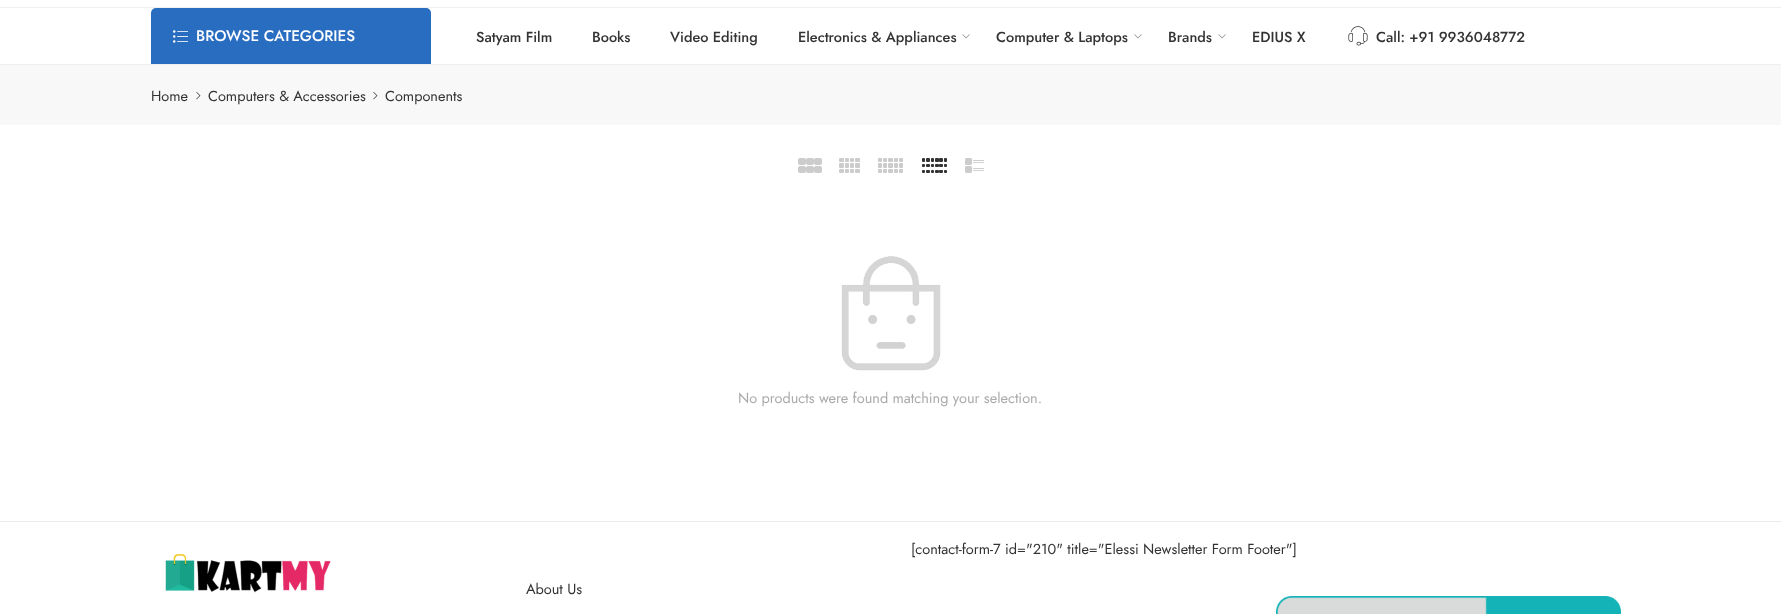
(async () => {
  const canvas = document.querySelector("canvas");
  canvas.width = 1781;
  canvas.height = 614;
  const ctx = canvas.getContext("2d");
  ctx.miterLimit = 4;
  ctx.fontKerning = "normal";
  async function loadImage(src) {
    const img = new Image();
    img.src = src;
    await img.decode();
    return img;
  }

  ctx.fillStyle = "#ffffff";
  ctx.fillRect(0, 0, 1781, 614);
  ctx.fillStyle = "#efefef";
  ctx.fillRect(0, 7, 1781, 1);
  ctx.fillRect(0, 64, 1781, 1);
  ctx.fillStyle = "#296dc1";
  ctx.beginPath();
  ctx.roundRect(151, 8, 280, 56, [5, 5, 0, 0]);
  ctx.fill();
  ctx.drawImage(await loadImage("img/1.png"), 173, 30, 15, 13);
  ctx.drawImage(await loadImage("img/2.png"), 962, 34, 8, 5);
  ctx.drawImage(await loadImage("img/2.png"), 1134, 34, 8, 5);
  ctx.drawImage(await loadImage("img/2.png"), 1218, 34, 8, 5);
  ctx.drawImage(await loadImage("img/3.png"), 1348, 26, 20, 20);
  ctx.fillStyle = "#f8f8f8";
  ctx.fillRect(0, 65, 1781, 60);
  ctx.drawImage(await loadImage("img/4.png"), 196, 92, 5, 8);
  ctx.drawImage(await loadImage("img/4.png"), 373, 92, 5, 8);
  ctx.drawImage(await loadImage("img/5.png"), 798, 158, 24, 15);
  ctx.drawImage(await loadImage("img/6.png"), 839, 158, 21, 15);
  ctx.drawImage(await loadImage("img/7.png"), 878, 158, 25, 15);
  ctx.drawImage(await loadImage("img/8.png"), 922, 158, 25, 15);
  ctx.drawImage(await loadImage("img/9.png"), 965, 158, 19, 15);
  ctx.drawImage(await loadImage("img/10.png"), 841, 256, 100, 115);
  ctx.fillStyle = "#ececec";
  ctx.fillRect(0, 521, 1781, 1);
  ctx.drawImage(await loadImage("img/11.png"), 1276, 596, 345, 18);
  ctx.drawImage(await loadImage("img/12.png"), 165, 554, 166, 39);
  ctx.font = "500 15.25px Jost";
  ctx.fillStyle = "#ffffff";
  ctx.fillText("BROWSE CATEGORIES", 196, 41);
  ctx.font = "500 14.5px Jost";
  ctx.fillStyle = "#333333";
  for (const [text, x, y] of [
    ["Satyam Film", 476, 42],
    ["Books", 592, 42],
    ["Video Editing", 670, 42],
    ["Electronics & Appliances", 798, 42],
    ["Computer & Laptops", 996, 42],
    ["Brands", 1168, 42],
    ["EDIUS X", 1252, 42],
    ["Call: +91 9936048772", 1376, 42],
  ]) {
    ctx.fillText(text, x, y);
  }
  ctx.font = "14.5px Jost";
  for (const [text, x, y] of [
    ["Home", 151, 101],
    ["Computers & Accessories", 208, 101],
    ["Components", 385, 101],
  ]) {
    ctx.fillText(text, x, y);
  }
  ctx.fillStyle = "#aaaaaa";
  ctx.fillText("No products were found matching your selection.", 738, 403);
  ctx.fillStyle = "#333333";
  ctx.fillText("[contact-form-7 id=\"210\" title=\"Elessi Newsletter Form Footer\"]", 911, 554);
  ctx.fillText("About Us", 526, 594);
})();
